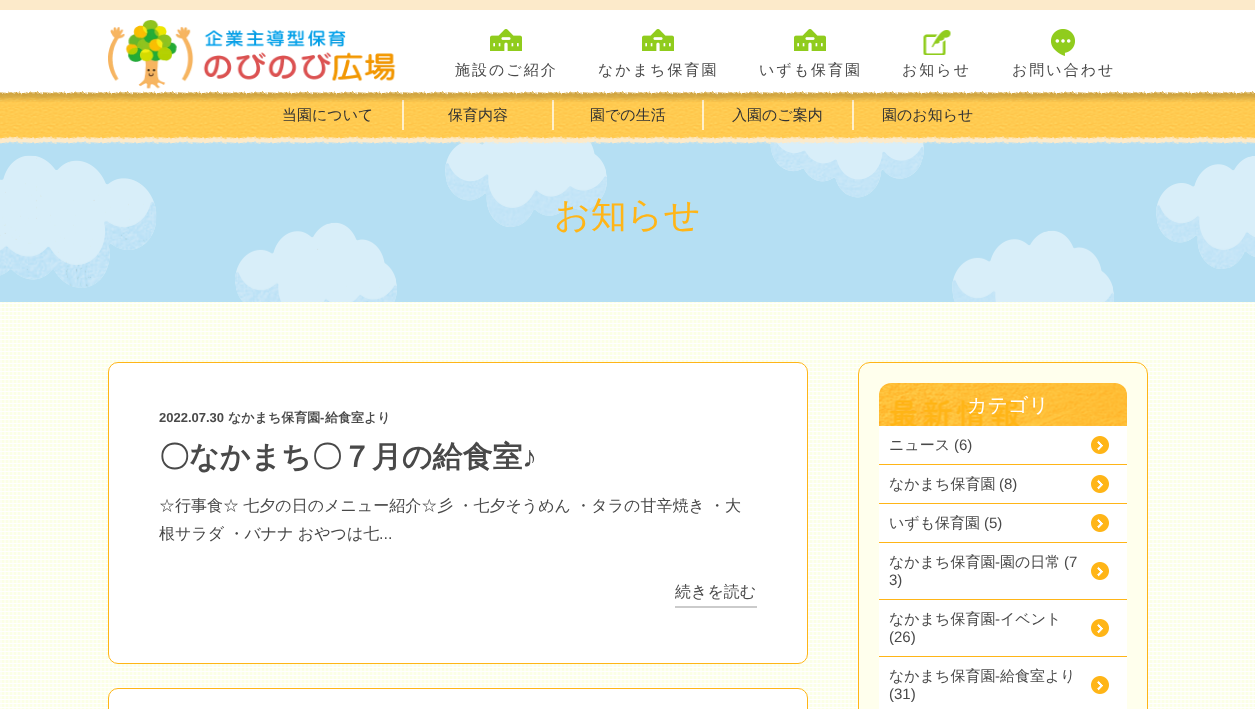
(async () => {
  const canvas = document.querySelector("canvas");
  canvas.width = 1255;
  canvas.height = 709;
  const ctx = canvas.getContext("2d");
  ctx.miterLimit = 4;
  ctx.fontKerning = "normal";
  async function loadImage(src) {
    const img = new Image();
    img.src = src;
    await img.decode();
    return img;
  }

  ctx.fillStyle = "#ffffff";
  ctx.fillRect(0, 0, 1255, 709);
  ctx.drawImage(await loadImage("img/1.png"), 0, 302, 1255, 407);
  ctx.fillStyle = "#b5dff3";
  ctx.fillRect(0, 141, 1255, 161);
  ctx.drawImage(await loadImage("img/8.png"), 0, 141, 607, 161);
  ctx.drawImage(await loadImage("img/9.png"), 770, 141, 485, 161);
  ctx.drawImage(await loadImage("img/7.png"), 0, 91, 1255, 53);
  for (const [x, y, w, h, color] of [
    [402, 100, 2, 30, "rgba(255, 255, 255, 0.7)"],
    [552, 100, 2, 30, "rgba(255, 255, 255, 0.7)"],
    [702, 100, 2, 30, "rgba(255, 255, 255, 0.7)"],
    [852, 100, 2, 30, "rgba(255, 255, 255, 0.7)"],
  ]) {
    ctx.fillStyle = color;
    ctx.fillRect(x, y, w, h);
  }
  ctx.drawImage(await loadImage("img/2.png"), 0, 91, 1255, 11);
  ctx.fillStyle = "#fceaca";
  ctx.fillRect(0, 0, 1255, 10);
  ctx.drawImage(await loadImage("img/3.png"), 108, 20, 288, 69);
  ctx.drawImage(await loadImage("img/4.png"), 490, 29, 32, 22);
  ctx.drawImage(await loadImage("img/4.png"), 642, 29, 32, 22);
  ctx.drawImage(await loadImage("img/4.png"), 794, 29, 32, 22);
  ctx.drawImage(await loadImage("img/5.png"), 923, 30, 28, 25);
  ctx.drawImage(await loadImage("img/6.png"), 1051, 29, 24, 27);
  ctx.fillStyle = "#ffffff";
  ctx.beginPath();
  ctx.roundRect(108.5, 362.5, 699, 301, 9.5);
  ctx.fill();
  ctx.strokeStyle = "#ffb517";
  ctx.stroke();
  ctx.fillStyle = "#cbcbcb";
  ctx.fillRect(675, 606, 82, 2);
  ctx.fillStyle = "#ffffff";
  ctx.beginPath();
  ctx.roundRect(108.5, 688.5, 699, 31, 9.5);
  ctx.fill();
  ctx.stroke();
  ctx.fillStyle = "#ffffed";
  ctx.beginPath();
  ctx.roundRect(858.5, 362.5, 289, 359, 11.5);
  ctx.fill();
  ctx.stroke();
  ctx.fillStyle = "#ffffff";
  ctx.beginPath();
  ctx.roundRect(879, 383, 248, 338, 12);
  ctx.fill();
  ctx.drawImage(await loadImage("img/10.png"), 879, 383, 248, 43);
  ctx.fillStyle = "#ffb517";
  ctx.fillRect(879, 464, 248, 1);
  ctx.drawImage(await loadImage("img/11.png"), 1091, 436, 18, 18);
  ctx.fillRect(879, 503, 248, 1);
  ctx.drawImage(await loadImage("img/11.png"), 1091, 475, 18, 18);
  ctx.fillRect(879, 542, 248, 1);
  ctx.drawImage(await loadImage("img/11.png"), 1091, 514, 18, 18);
  ctx.fillRect(879, 599, 248, 1);
  ctx.drawImage(await loadImage("img/11.png"), 1091, 562, 18, 18);
  ctx.fillRect(879, 656, 248, 1);
  ctx.drawImage(await loadImage("img/11.png"), 1091, 619, 18, 18);
  ctx.drawImage(await loadImage("img/11.png"), 1091, 676, 18, 18);
  ctx.letterSpacing = "2px";
  ctx.font = "500 15px WenQuanYi Zen Hei";
  ctx.fillStyle = "#494949";
  for (const [text, x, y] of [
    ["施設のご紹介", 455, 75],
    ["なかまち保育園", 598, 75],
    ["いずも保育園", 759, 75],
    ["お知らせ", 902, 75],
    ["お問い合わせ", 1012, 75],
  ]) {
    ctx.fillText(text, x, y);
  }
  ctx.letterSpacing = "0px";
  ctx.fillStyle = "#333333";
  for (const [text, x, y] of [
    ["当園について", 282, 120],
    ["保育内容", 448, 120],
    ["園での生活", 590, 120],
    ["入園のご案内", 732, 120],
    ["園のお知らせ", 882, 120],
  ]) {
    ctx.fillText(text, x, y);
  }
  ctx.font = "500 36px WenQuanYi Zen Hei";
  ctx.fillStyle = "#ffb517";
  ctx.fillText("お知らせ", 554, 227);
  ctx.font = "bold 13px Liberation Sans";
  ctx.fillStyle = "#494949";
  ctx.fillText("2022.07.30", 159, 422);
  ctx.font = "bold 13px WenQuanYi Zen Hei";
  ctx.fillText("なかまち保育園", 228, 422);
  ctx.font = "bold 13px Liberation Sans";
  ctx.fillText("-", 320, 422);
  ctx.font = "bold 13px WenQuanYi Zen Hei";
  ctx.fillText("給食室より", 325, 422);
  ctx.font = "bold 30px WenQuanYi Zen Hei";
  ctx.fillText("〇なかまち〇７月の給食室", 159, 467);
  ctx.font = "bold 30px Liberation Sans";
  ctx.fillText("♪", 522, 467);
  ctx.wordSpacing = "-0.5px";
  ctx.font = "500 16px WenQuanYi Zen Hei";
  ctx.fillText("☆行事食☆ 七夕の日のメニュー紹介☆彡 ・七夕そうめん ・タラの甘辛焼き ・大", 159, 511);
  ctx.fillText("根サラダ ・バナナ おやつは七", 159, 539);
  ctx.wordSpacing = "0px";
  ctx.font = "16px Liberation Sans";
  ctx.fillText("...", 379, 539);
  ctx.font = "500 16px WenQuanYi Zen Hei";
  ctx.fillText("続きを読む", 675, 597);
  ctx.font = "500 20px WenQuanYi Zen Hei";
  ctx.fillStyle = "#ffffff";
  ctx.fillText("カテゴリ", 967, 412);
  ctx.font = "500 15px WenQuanYi Zen Hei";
  ctx.fillStyle = "#494949";
  ctx.fillText("ニュース", 889, 450);
  ctx.font = "15px Liberation Sans";
  ctx.fillText("(6)", 954, 450);
  ctx.font = "500 15px WenQuanYi Zen Hei";
  ctx.fillText("なかまち保育園", 889, 489);
  ctx.font = "15px Liberation Sans";
  ctx.fillText("(8)", 999, 489);
  ctx.font = "500 15px WenQuanYi Zen Hei";
  ctx.fillText("いずも保育園", 889, 528);
  ctx.font = "15px Liberation Sans";
  ctx.fillText("(5)", 984, 528);
  ctx.font = "500 15px WenQuanYi Zen Hei";
  ctx.fillText("なかまち保育園", 889, 567);
  ctx.font = "15px Liberation Sans";
  ctx.fillText("-", 995, 567);
  ctx.font = "500 15px WenQuanYi Zen Hei";
  ctx.fillText("園の日常", 1000, 567);
  ctx.font = "15px Liberation Sans";
  ctx.fillText("(7", 1064, 567);
  ctx.fillText("3)", 889, 585);
  ctx.font = "500 15px WenQuanYi Zen Hei";
  ctx.fillText("なかまち保育園", 889, 624);
  ctx.font = "15px Liberation Sans";
  ctx.fillText("-", 995, 624);
  ctx.font = "500 15px WenQuanYi Zen Hei";
  ctx.fillText("イベント", 1000, 624);
  ctx.font = "15px Liberation Sans";
  ctx.fillText("(26)", 889, 642);
  ctx.font = "500 15px WenQuanYi Zen Hei";
  ctx.fillText("なかまち保育園", 889, 681);
  ctx.font = "15px Liberation Sans";
  ctx.fillText("-", 995, 681);
  ctx.font = "500 15px WenQuanYi Zen Hei";
  ctx.fillText("給食室より", 1000, 681);
  ctx.font = "15px Liberation Sans";
  ctx.fillText("(31)", 889, 699);
})();
